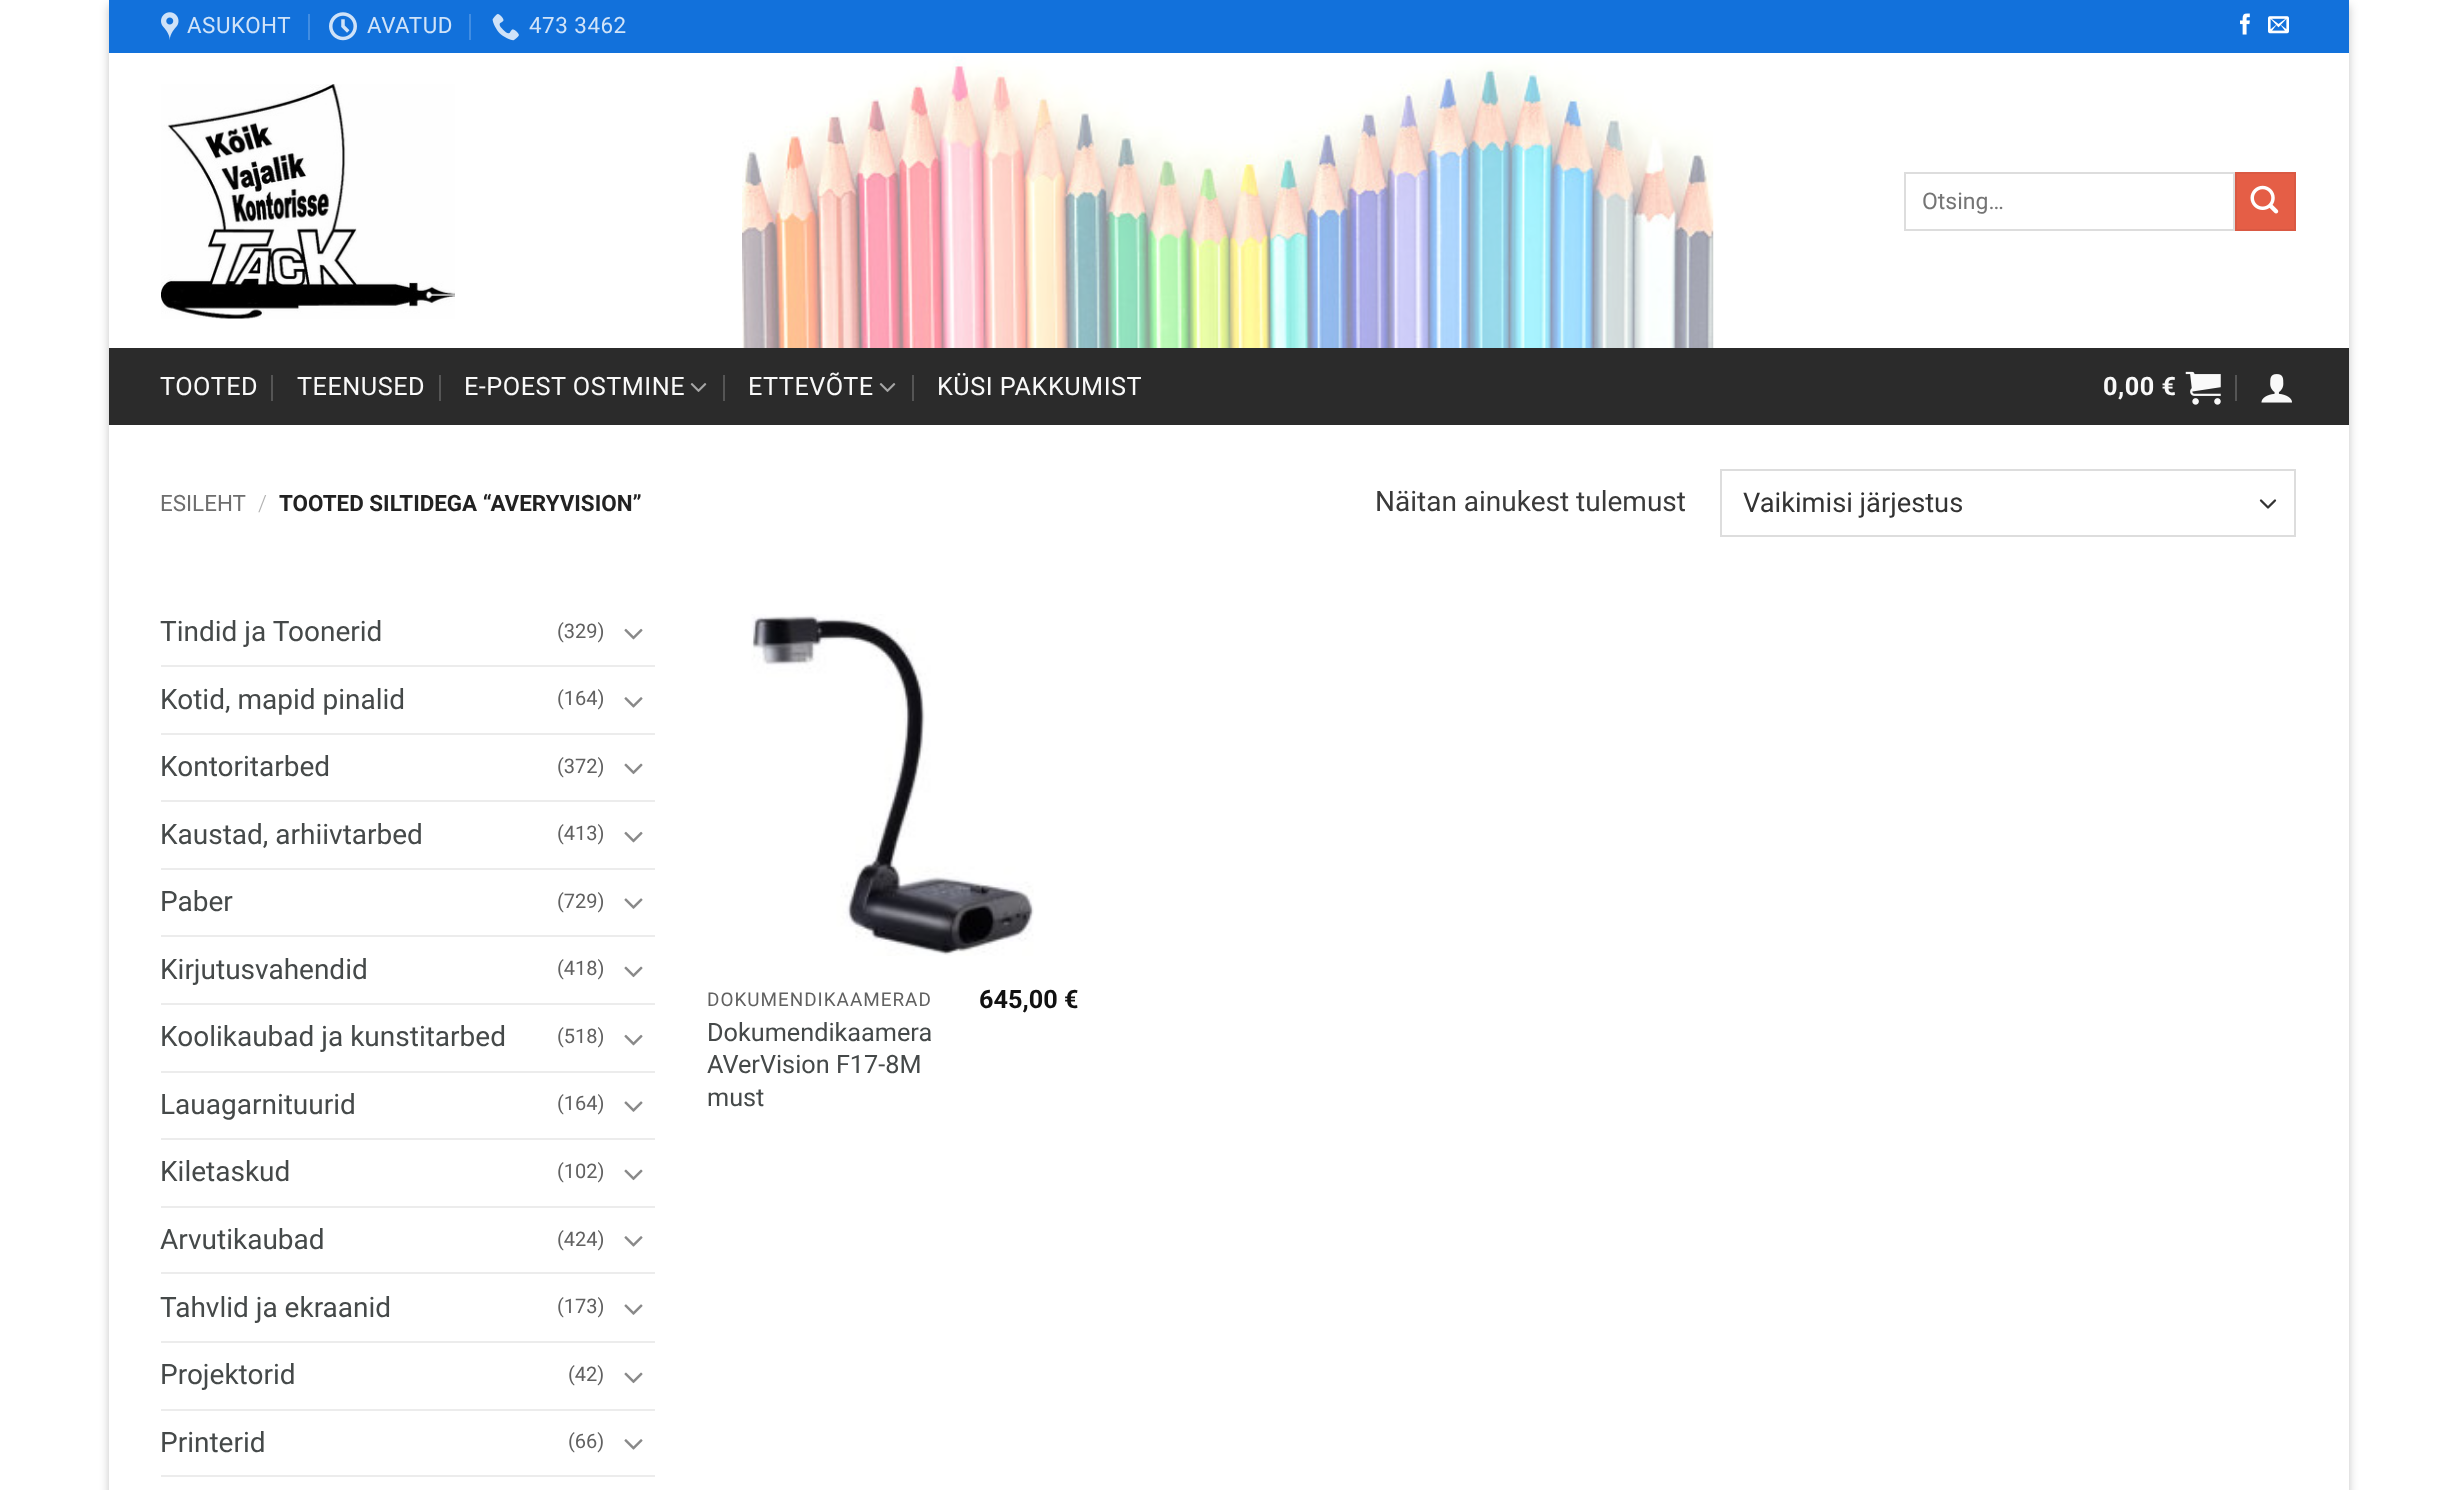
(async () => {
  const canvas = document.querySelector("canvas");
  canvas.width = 2455;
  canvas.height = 1490;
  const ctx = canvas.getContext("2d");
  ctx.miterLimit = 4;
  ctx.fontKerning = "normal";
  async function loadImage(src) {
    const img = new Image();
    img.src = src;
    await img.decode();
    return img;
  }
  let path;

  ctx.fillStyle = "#ffffff";
  ctx.fillRect(0, 0, 2455, 1490);
  ctx.fillStyle = "rgba(0, 0, 0, 0.23)";
  ctx.filter = "blur(5px)";
  ctx.beginPath();
  ctx.rect(109, 5, 2240, 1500);
  ctx.fill();
  ctx.filter = "none";
  ctx.fillStyle = "#ffffff";
  ctx.fillRect(109, 53, 2240, 1437);
  ctx.fillStyle = "#1271db";
  ctx.fillRect(109, 0, 2240, 53);
  ctx.drawImage(await loadImage("img/1.png"), 161, 12, 18, 28);
  ctx.fillStyle = "#418de2";
  ctx.fillRect(308, 14, 2, 26);
  ctx.drawImage(await loadImage("img/2.png"), 329, 12, 28, 29);
  ctx.fillRect(469, 14, 2, 26);
  ctx.drawImage(await loadImage("img/3.png"), 492, 14, 27, 27);
  ctx.drawImage(await loadImage("img/4.png"), 2240, 13, 10, 22);
  ctx.drawImage(await loadImage("img/5.png"), 2268, 16, 21, 18);
  ctx.drawImage(await loadImage("img/6.png"), 742, 56, 972, 292);
  ctx.fillStyle = "rgba(255, 255, 255, 0.56)";
  ctx.fillRect(742, 56, 972, 292);
  ctx.drawImage(await loadImage("img/7.png"), 161, 84, 294, 235);
  ctx.strokeStyle = "#dddddd";
  ctx.lineWidth = 2;
  ctx.strokeRect(1905, 173, 329, 57);
  ctx.fillStyle = "#e55e46";
  ctx.beginPath();
  ctx.rect(2236, 173, 59, 57);
  ctx.fill();
  ctx.strokeStyle = "#da5943";
  ctx.stroke();
  ctx.drawImage(await loadImage("img/8.png"), 2250, 185, 29, 29);
  for (const [x, y, w, h, color] of [
    [109, 348, 2240, 77, "#2b2b2b"],
    [271, 375, 2, 26, "#555555"],
    [439, 375, 2, 26, "#555555"],
  ]) {
    ctx.fillStyle = color;
    ctx.fillRect(x, y, w, h);
  }
  ctx.drawImage(await loadImage("img/9.png"), 690, 383, 17, 9);
  ctx.fillRect(723, 375, 2, 26);
  ctx.drawImage(await loadImage("img/9.png"), 879, 383, 17, 9);
  ctx.fillRect(912, 375, 2, 26);
  ctx.drawImage(await loadImage("img/10.png"), 2185, 371, 36, 34);
  ctx.fillRect(2235, 375, 2, 26);
  ctx.drawImage(await loadImage("img/11.png"), 2261, 374, 31, 29);
  path = new Path2D("M2261 500.5L2268 507.5L2275 500.5");
  ctx.strokeStyle = "#333333";
  ctx.lineWidth = 2.3;
  ctx.lineCap = "round";
  ctx.lineJoin = "round";
  ctx.stroke(path);
  ctx.strokeStyle = "#dddddd";
  ctx.lineWidth = 2;
  ctx.lineJoin = "miter";
  ctx.strokeRect(1721, 470, 574, 66);
  ctx.drawImage(await loadImage("img/12.png"), 624, 628, 19, 12);
  ctx.fillStyle = "#ececec";
  ctx.fillRect(161, 665, 494, 2);
  ctx.drawImage(await loadImage("img/13.png"), 624, 697, 19, 11);
  ctx.fillRect(161, 733, 494, 2);
  ctx.drawImage(await loadImage("img/14.png"), 624, 763, 19, 12);
  ctx.fillRect(161, 800, 494, 2);
  ctx.drawImage(await loadImage("img/12.png"), 624, 831, 19, 12);
  ctx.fillRect(161, 868, 494, 2);
  ctx.drawImage(await loadImage("img/15.png"), 624, 898, 19, 11);
  ctx.fillRect(161, 935, 494, 2);
  ctx.drawImage(await loadImage("img/14.png"), 624, 966, 19, 12);
  ctx.fillRect(161, 1003, 494, 2);
  ctx.drawImage(await loadImage("img/12.png"), 624, 1034, 19, 12);
  ctx.fillRect(161, 1071, 494, 2);
  ctx.drawImage(await loadImage("img/15.png"), 624, 1101, 19, 11);
  ctx.fillRect(161, 1138, 494, 2);
  ctx.drawImage(await loadImage("img/14.png"), 624, 1169, 19, 12);
  ctx.fillRect(161, 1206, 494, 2);
  ctx.drawImage(await loadImage("img/13.png"), 624, 1236, 19, 11);
  ctx.fillRect(161, 1272, 494, 2);
  ctx.drawImage(await loadImage("img/15.png"), 624, 1304, 19, 11);
  ctx.fillRect(161, 1341, 494, 2);
  ctx.drawImage(await loadImage("img/14.png"), 624, 1372, 19, 12);
  ctx.fillRect(161, 1409, 494, 2);
  ctx.drawImage(await loadImage("img/13.png"), 624, 1439, 19, 11);
  ctx.fillRect(161, 1475, 494, 2);
  ctx.drawImage(await loadImage("img/16.png"), 751, 614, 283, 342);
  ctx.letterSpacing = "0.5px";
  ctx.font = "22.4px Roboto";
  ctx.fillStyle = "#d0e3f8";
  for (const [text, x, y] of [
    ["ASUKOHT", 187, 33],
    ["AVATUD", 367, 33],
    ["473 3462", 529, 33],
  ]) {
    ctx.fillText(text, x, y);
  }
  ctx.letterSpacing = "0px";
  ctx.font = "23px Roboto";
  ctx.fillStyle = "#757575";
  ctx.fillText("Otsing…", 1922, 209);
  ctx.letterSpacing = "0.5px";
  ctx.font = "25.25px Roboto";
  ctx.fillStyle = "#f9f9f9";
  for (const [text, x, y] of [
    ["TOOTED", 160, 395],
    ["TEENUSED", 297, 395],
    ["E-POEST OSTMINE", 464, 395],
    ["ETTEVÕTE", 748, 395],
    ["KÜSI PAKKUMIST", 937, 395],
  ]) {
    ctx.fillText(text, x, y);
  }
  ctx.font = "bold 25.25px Roboto";
  ctx.fillText("0,00 €", 2103, 395);
  ctx.letterSpacing = "0px";
  ctx.font = "22.4px Roboto";
  ctx.fillStyle = "#6e6e6e";
  ctx.fillText("ESILEHT", 160, 511);
  ctx.font = "300 22.4px Roboto";
  ctx.fillStyle = "#b2b2b2";
  ctx.fillText("/", 258, 511);
  ctx.font = "bold 22.4px Roboto";
  ctx.fillStyle = "#222222";
  ctx.fillText("TOOTED SILTIDEGA “AVERYVISION”", 279, 511);
  ctx.font = "28px Roboto";
  ctx.fillStyle = "#3a3a3a";
  ctx.fillText("Näitan ainukest tulemust", 1375, 511);
  ctx.font = "27.25px Roboto";
  ctx.fillStyle = "#333333";
  ctx.fillText("Vaikimisi järjestus", 1743, 512);
  ctx.font = "28px Roboto";
  ctx.fillStyle = "#454949";
  ctx.fillText("Tindid ja Toonerid", 160, 641);
  ctx.font = "20px Roboto";
  ctx.fillStyle = "#616161";
  ctx.fillText("(329)", 557, 638);
  ctx.font = "28px Roboto";
  ctx.fillStyle = "#454949";
  ctx.fillText("Kotid, mapid pinalid", 160, 709);
  ctx.font = "20px Roboto";
  ctx.fillStyle = "#616161";
  ctx.fillText("(164)", 557, 705);
  ctx.font = "28px Roboto";
  ctx.fillStyle = "#454949";
  ctx.fillText("Kontoritarbed", 160, 776);
  ctx.font = "20px Roboto";
  ctx.fillStyle = "#616161";
  ctx.fillText("(372)", 557, 773);
  ctx.font = "28px Roboto";
  ctx.fillStyle = "#454949";
  ctx.fillText("Kaustad, arhiivtarbed", 160, 844);
  ctx.font = "20px Roboto";
  ctx.fillStyle = "#616161";
  ctx.fillText("(413)", 557, 840);
  ctx.font = "28px Roboto";
  ctx.fillStyle = "#454949";
  ctx.fillText("Paber", 160, 911);
  ctx.font = "20px Roboto";
  ctx.fillStyle = "#616161";
  ctx.fillText("(729)", 557, 908);
  ctx.font = "28px Roboto";
  ctx.fillStyle = "#454949";
  ctx.fillText("Kirjutusvahendid", 160, 979);
  ctx.font = "20px Roboto";
  ctx.fillStyle = "#616161";
  ctx.fillText("(418)", 557, 975);
  ctx.font = "28px Roboto";
  ctx.fillStyle = "#454949";
  ctx.fillText("Koolikaubad ja kunstitarbed", 160, 1046);
  ctx.font = "20px Roboto";
  ctx.fillStyle = "#616161";
  ctx.fillText("(518)", 557, 1043);
  ctx.font = "28px Roboto";
  ctx.fillStyle = "#454949";
  ctx.fillText("Lauagarnituurid", 160, 1114);
  ctx.font = "20px Roboto";
  ctx.fillStyle = "#616161";
  ctx.fillText("(164)", 557, 1110);
  ctx.font = "28px Roboto";
  ctx.fillStyle = "#454949";
  ctx.fillText("Kiletaskud", 160, 1181);
  ctx.font = "20px Roboto";
  ctx.fillStyle = "#616161";
  ctx.fillText("(102)", 557, 1178);
  ctx.font = "28px Roboto";
  ctx.fillStyle = "#454949";
  ctx.fillText("Arvutikaubad", 160, 1249);
  ctx.font = "20px Roboto";
  ctx.fillStyle = "#616161";
  ctx.fillText("(424)", 557, 1246);
  ctx.font = "28px Roboto";
  ctx.fillStyle = "#454949";
  ctx.fillText("Tahvlid ja ekraanid", 160, 1317);
  ctx.font = "20px Roboto";
  ctx.fillStyle = "#616161";
  ctx.fillText("(173)", 557, 1313);
  ctx.font = "28px Roboto";
  ctx.fillStyle = "#454949";
  ctx.fillText("Projektorid", 160, 1384);
  ctx.font = "20px Roboto";
  ctx.fillStyle = "#616161";
  ctx.fillText("(42)", 568, 1381);
  ctx.font = "28px Roboto";
  ctx.fillStyle = "#454949";
  ctx.fillText("Printerid", 160, 1452);
  ctx.font = "20px Roboto";
  ctx.fillStyle = "#616161";
  ctx.fillText("(66)", 568, 1448);
  ctx.letterSpacing = "1px";
  ctx.font = "18.9px Roboto";
  ctx.fillText("DOKUMENDIKAAMERAD", 707, 1006);
  ctx.letterSpacing = "0px";
  ctx.font = "25.25px Roboto";
  ctx.fillStyle = "#454949";
  for (const [text, x, y] of [
    ["Dokumendikaamera", 707, 1041],
    ["AVerVision F17-8M", 707, 1073],
    ["must", 707, 1106],
  ]) {
    ctx.fillText(text, x, y);
  }
  ctx.font = "bold 25.25px Roboto";
  ctx.fillStyle = "#111111";
  ctx.fillText("645,00 €", 979, 1008);
})();
